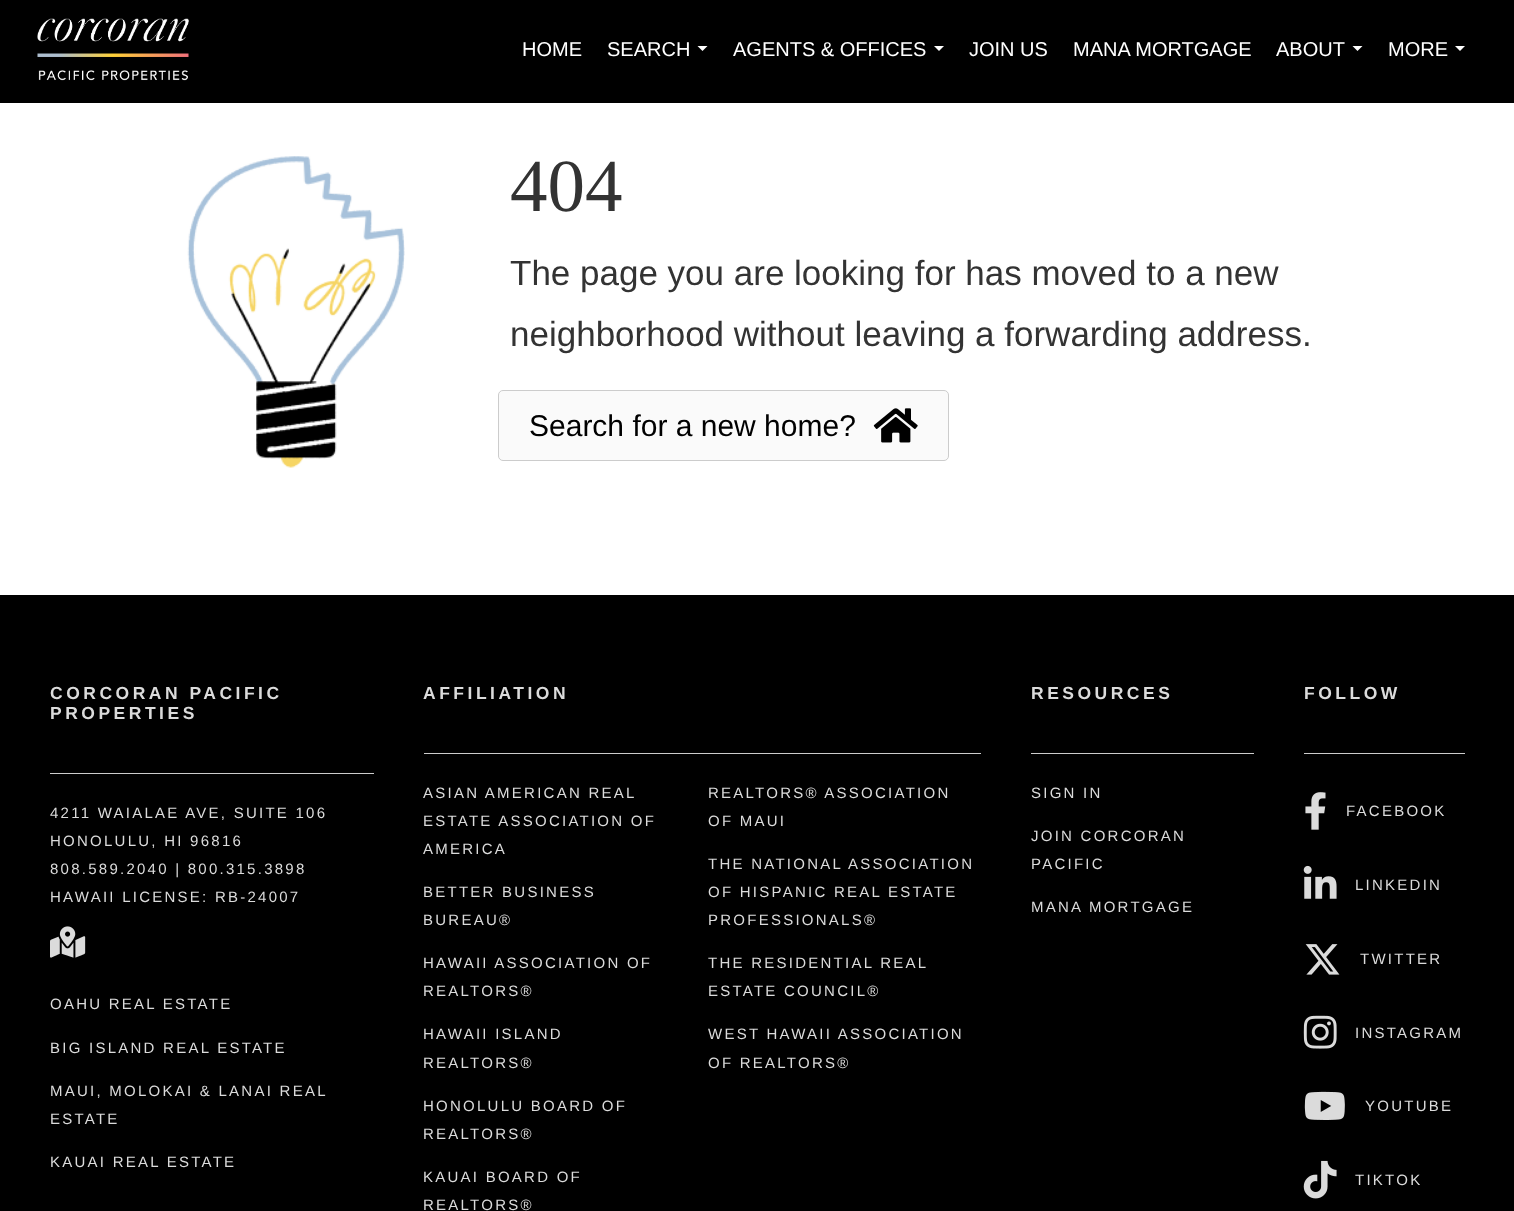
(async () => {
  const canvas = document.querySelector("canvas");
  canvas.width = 1514;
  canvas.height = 1211;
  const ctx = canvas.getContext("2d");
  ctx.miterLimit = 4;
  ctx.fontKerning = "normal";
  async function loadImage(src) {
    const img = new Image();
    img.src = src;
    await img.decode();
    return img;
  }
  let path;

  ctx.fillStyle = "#ffffff";
  ctx.fillRect(0, 0, 1514, 1211);
  ctx.fillStyle = "#000000";
  ctx.fillRect(0, 0, 1514, 103);
  ctx.drawImage(await loadImage("img/1.png"), 37, 18, 152, 63);
  ctx.fillStyle = "#ffffff";
  path = new Path2D("M697.5 46H707.5L702.5 51Z");
  ctx.fill(path);
  path = new Path2D("M934 46H944L939 51Z");
  ctx.fill(path);
  path = new Path2D("M1352.5 46H1362.5L1357.5 51Z");
  ctx.fill(path);
  path = new Path2D("M1455 46H1465L1460 51Z");
  ctx.fill(path);
  ctx.drawImage(await loadImage("img/2.png"), 187, 156, 218, 312);
  ctx.fillStyle = "#fafafa";
  ctx.beginPath();
  ctx.roundRect(498.5, 390.5, 450, 70, 4.5);
  ctx.fill();
  ctx.strokeStyle = "#cccccc";
  ctx.stroke();
  ctx.drawImage(await loadImage("img/3.png"), 873, 408, 45, 35);
  ctx.fillStyle = "#000000";
  ctx.fillRect(0, 595, 1514, 616);
  ctx.fillStyle = "#cccccc";
  ctx.fillRect(50, 773, 324, 1);
  ctx.drawImage(await loadImage("img/4.png"), 50, 926, 36, 32);
  for (const [x, y, w, h, color] of [
    [424, 753, 557, 1, "#cccccc"],
    [1031, 753, 223, 1, "#cccccc"],
    [1304, 753, 161, 1, "#cccccc"],
  ]) {
    ctx.fillStyle = color;
    ctx.fillRect(x, y, w, h);
  }
  ctx.drawImage(await loadImage("img/5.png"), 1305, 792, 21, 38);
  ctx.drawImage(await loadImage("img/6.png"), 1303, 865, 34, 34);
  ctx.drawImage(await loadImage("img/7.png"), 1305, 944, 35, 31);
  ctx.drawImage(await loadImage("img/8.png"), 1303, 1015, 34, 34);
  ctx.drawImage(await loadImage("img/9.png"), 1304, 1091, 41, 29);
  ctx.drawImage(await loadImage("img/10.png"), 1303, 1160, 34, 39);
  ctx.font = "20px Liberation Sans";
  ctx.fillStyle = "#ffffff";
  for (const [text, x, y] of [
    ["HOME", 522, 56],
    ["SEARCH", 607, 56],
    ["AGENTS & OFFICES", 733, 56],
    ["JOIN US", 969, 56],
    ["MANA MORTGAGE", 1073, 56],
    ["ABOUT", 1276, 56],
    ["MORE", 1388, 56],
  ]) {
    ctx.fillText(text, x, y);
  }
  ctx.font = "75px Liberation Serif";
  ctx.fillStyle = "#333333";
  ctx.fillText("404", 510, 211);
  ctx.font = "35px Liberation Sans";
  ctx.fillText("The page you are looking for has moved to a new", 510, 285);
  ctx.fillText("neighborhood without leaving a forwarding address.", 510, 346);
  ctx.font = "30px Liberation Sans";
  ctx.fillStyle = "#000000";
  ctx.fillText("Search for a new home?", 529, 436);
  ctx.letterSpacing = "3.5px";
  ctx.font = "bold 17.5px Liberation Sans";
  ctx.fillStyle = "#dbdbdb";
  ctx.fillText("CORCORAN PACIFIC", 50, 699);
  ctx.fillText("PROPERTIES", 50, 719);
  ctx.letterSpacing = "2.25px";
  ctx.font = "15px Liberation Sans";
  for (const [text, x, y] of [
    ["4211 WAIALAE AVE, SUITE 106", 50, 818],
    ["HONOLULU, HI 96816", 50, 846],
    ["808.589.2040 | 800.315.3898", 50, 874],
    ["HAWAII LICENSE: RB-24007", 50, 902],
    ["OAHU REAL ESTATE", 50, 1009],
    ["BIG ISLAND REAL ESTATE", 50, 1053],
    ["MAUI, MOLOKAI & LANAI REAL", 50, 1096],
    ["ESTATE", 50, 1124],
    ["KAUAI REAL ESTATE", 50, 1167],
  ]) {
    ctx.fillText(text, x, y);
  }
  ctx.letterSpacing = "3.5px";
  ctx.font = "bold 17.5px Liberation Sans";
  ctx.fillText("AFFILIATION", 423, 699);
  ctx.letterSpacing = "2.25px";
  ctx.font = "15px Liberation Sans";
  for (const [text, x, y] of [
    ["ASIAN AMERICAN REAL", 423, 798],
    ["ESTATE ASSOCIATION OF", 423, 826],
    ["AMERICA", 423, 854],
    ["BETTER BUSINESS", 423, 897],
    ["BUREAU®", 423, 925],
    ["HAWAII ASSOCIATION OF", 423, 968],
    ["REALTORS®", 423, 996],
    ["HAWAII ISLAND", 423, 1039],
    ["REALTORS®", 423, 1068],
    ["HONOLULU BOARD OF", 423, 1111],
    ["REALTORS®", 423, 1139],
    ["KAUAI BOARD OF", 423, 1182],
    ["REALTORS®", 423, 1210],
    ["REALTORS® ASSOCIATION", 708, 798],
    ["OF MAUI", 708, 826],
    ["THE NATIONAL ASSOCIATION", 708, 869],
    ["OF HISPANIC REAL ESTATE", 708, 897],
    ["PROFESSIONALS®", 708, 925],
    ["THE RESIDENTIAL REAL", 708, 968],
    ["ESTATE COUNCIL®", 708, 996],
    ["WEST HAWAII ASSOCIATION", 708, 1039],
    ["OF REALTORS®", 708, 1068],
  ]) {
    ctx.fillText(text, x, y);
  }
  ctx.letterSpacing = "3.5px";
  ctx.font = "bold 17.5px Liberation Sans";
  ctx.fillText("RESOURCES", 1031, 699);
  ctx.letterSpacing = "2.25px";
  ctx.font = "15px Liberation Sans";
  for (const [text, x, y] of [
    ["SIGN IN", 1031, 798],
    ["JOIN CORCORAN", 1031, 841],
    ["PACIFIC", 1031, 869],
    ["MANA MORTGAGE", 1031, 912],
  ]) {
    ctx.fillText(text, x, y);
  }
  ctx.letterSpacing = "3.5px";
  ctx.font = "bold 17.5px Liberation Sans";
  ctx.fillText("FOLLOW", 1304, 699);
  ctx.letterSpacing = "2.25px";
  ctx.font = "15px Liberation Sans";
  for (const [text, x, y] of [
    ["FACEBOOK", 1346, 816],
    ["LINKEDIN", 1355, 890],
    ["TWITTER", 1360, 964],
    ["INSTAGRAM", 1355, 1038],
    ["YOUTUBE", 1365, 1111],
    ["TIKTOK", 1355, 1185],
  ]) {
    ctx.fillText(text, x, y);
  }
})();
